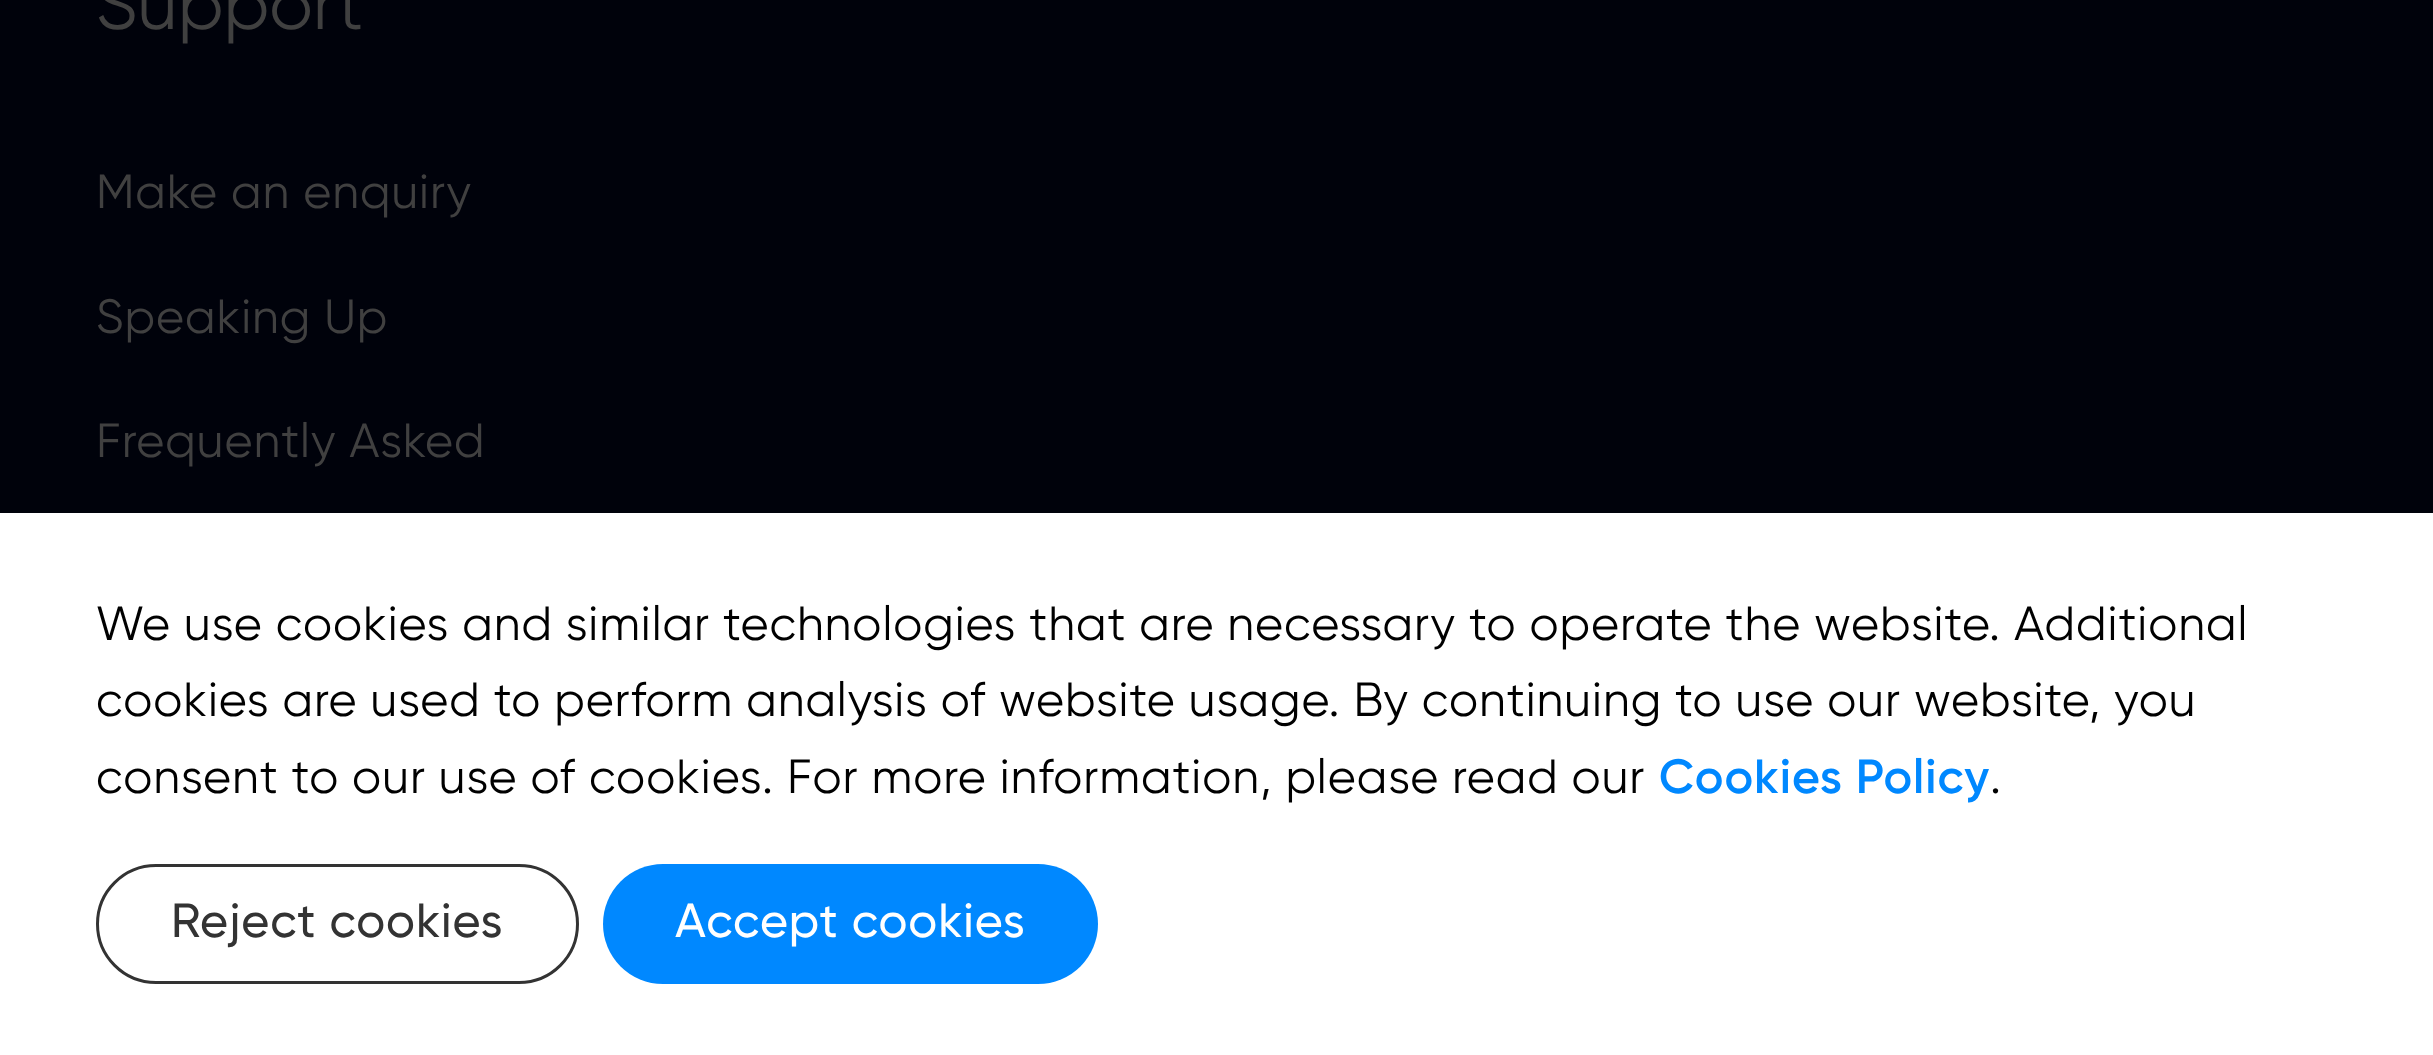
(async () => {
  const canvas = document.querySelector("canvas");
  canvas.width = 2433;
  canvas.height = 1055;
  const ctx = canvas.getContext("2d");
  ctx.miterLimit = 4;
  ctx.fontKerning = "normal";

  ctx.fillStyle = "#00020b";
  ctx.fillRect(0, 0, 2433, 1055);
  ctx.fillStyle = "#ffffff";
  ctx.fillRect(0, 513, 2433, 542);
  ctx.beginPath();
  ctx.roundRect(97.5, 865.5, 480, 117, 58.5);
  ctx.strokeStyle = "#333333";
  ctx.lineWidth = 3;
  ctx.stroke();
  ctx.fillStyle = "#0088ff";
  ctx.beginPath();
  ctx.roundRect(603, 864, 495, 120, 60);
  ctx.fill();
  ctx.font = "72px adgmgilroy";
  ctx.fillStyle = "#404040";
  ctx.fillText("Support", 96, 29);
  ctx.letterSpacing = "0.95px";
  ctx.font = "48px adgmgilroy";
  for (const [text, x, y] of [
    ["Make an enquiry", 96, 208],
    ["Speaking Up", 96, 333],
    ["Frequently Asked", 96, 457],
  ]) {
    ctx.fillText(text, x, y);
  }
  ctx.fillStyle = "#000000";
  for (const [text, x, y] of [
    ["We use cookies and similar technologies that are necessary to operate the website. Additional", 96, 640],
    ["cookies are used to perform analysis of website usage. By continuing to use our website, you", 96, 716],
    ["consent to our use of cookies. For more information, please read our", 96, 793],
  ]) {
    ctx.fillText(text, x, y);
  }
  ctx.font = "600 48px Gilroy";
  ctx.fillStyle = "#0088ff";
  ctx.fillText("Cookies Policy", 1659, 793);
  ctx.font = "48px adgmgilroy";
  ctx.fillStyle = "#000000";
  ctx.fillText(".", 1990, 793);
  ctx.font = "500 48px Gilroy";
  ctx.fillStyle = "#333333";
  ctx.fillText("Reject cookies", 171, 937);
  ctx.fillStyle = "#ffffff";
  ctx.fillText("Accept cookies", 675, 937);
})();
